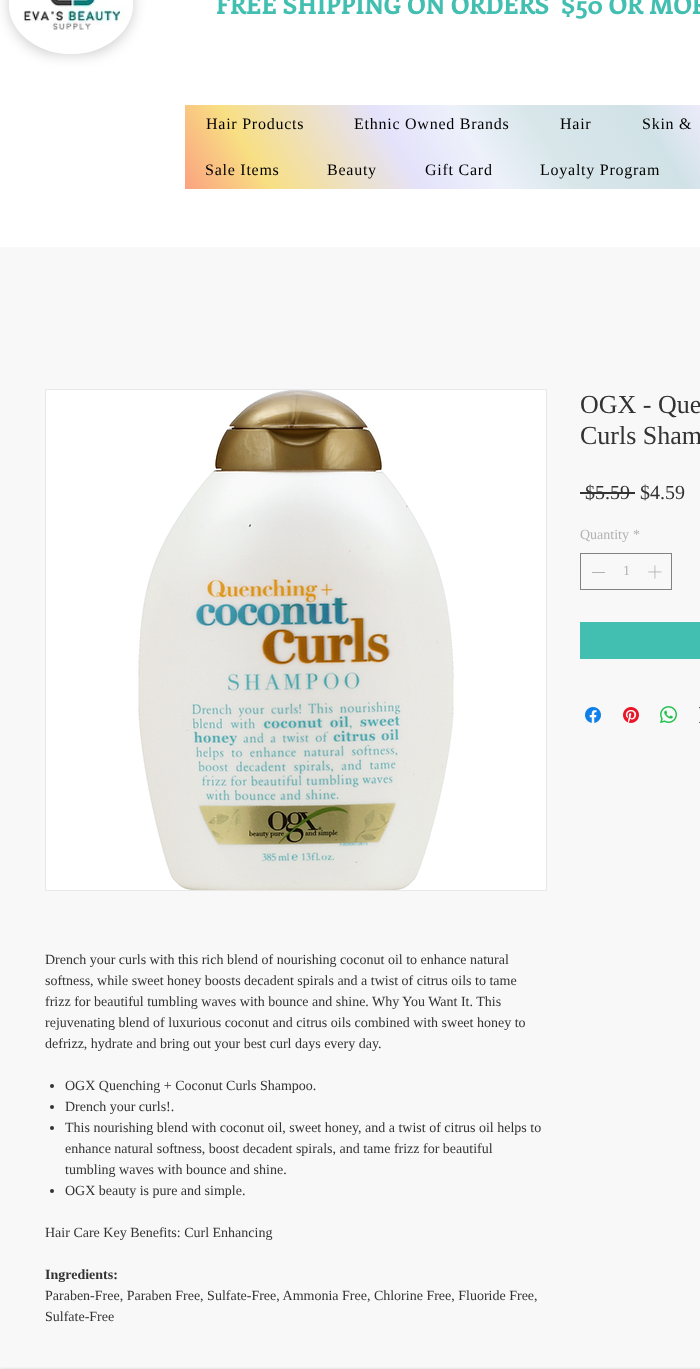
(async () => {
  const canvas = document.querySelector("canvas");
  canvas.width = 700;
  canvas.height = 1369;
  const ctx = canvas.getContext("2d");
  ctx.miterLimit = 4;
  ctx.fontKerning = "normal";
  async function loadImage(src) {
    const img = new Image();
    img.src = src;
    await img.decode();
    return img;
  }
  let gradient, path;

  ctx.fillStyle = "#ffffff";
  ctx.fillRect(0, 0, 700, 1369);
  ctx.fillStyle = "rgba(0, 0, 0, 0.2)";
  ctx.filter = "blur(7px)";
  ctx.beginPath();
  ctx.roundRect(9, -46, 124, 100, 50);
  ctx.fill();
  ctx.filter = "none";
  ctx.fillStyle = "#ffffff";
  ctx.beginPath();
  ctx.ellipse(71, 4, 62, 50, 0, 0, Math.PI * 2);
  ctx.fill();
  path = new Path2D("M71-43C103.5-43 130-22 130 4C130 30 103.5 51 71 51C38.5 51 12 30 12 4C12-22 38.5-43 71-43Z");
  ctx.strokeStyle = "#ffffff";
  ctx.lineWidth = 6;
  ctx.stroke(path);
  ctx.drawImage(await loadImage("img/1.png"), 23, 0, 101, 30);
  gradient = ctx.createLinearGradient(252, 296, 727, -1.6);
  gradient.addColorStop(0, "#fba281");
  gradient.addColorStop(0.13, "#f8df83");
  gradient.addColorStop(0.36, "#e4e2fb");
  gradient.addColorStop(0.48, "#edf1fa");
  gradient.addColorStop(0.59, "#d8e6ea");
  gradient.addColorStop(0.76, "#d1e2e7");
  gradient.addColorStop(0.86, "#ecebfa");
  gradient.addColorStop(0.99, "#a7a3e7");
  ctx.fillStyle = gradient;
  ctx.fillRect(185, 105, 515, 84);
  ctx.fillStyle = "#f8f8f8";
  ctx.fillRect(0, 247, 700, 1122);
  ctx.fillStyle = "#333333";
  ctx.fillRect(580, 492, 55, 2);
  ctx.strokeStyle = "#828282";
  ctx.lineWidth = 1;
  ctx.strokeRect(580.5, 553.5, 91, 36);
  ctx.fillStyle = "#b2b1b1";
  ctx.fillRect(592, 572, 13, 1);
  ctx.drawImage(await loadImage("img/2.png"), 648, 565, 14, 14);
  ctx.fillStyle = "#42bfb0";
  ctx.fillRect(580, 622, 120, 37);
  ctx.drawImage(await loadImage("img/3.png"), 585, 707, 16, 16);
  ctx.drawImage(await loadImage("img/4.png"), 623, 707, 16, 16);
  ctx.drawImage(await loadImage("img/5.png"), 660, 706, 17, 17);
  ctx.drawImage(await loadImage("img/6.png"), 699, 707, 1, 16);
  ctx.strokeStyle = "#e8e8e8";
  ctx.strokeRect(45.5, 389.5, 501, 501);
  ctx.drawImage(await loadImage("img/7.png"), 46, 390, 500, 500);
  ctx.fillStyle = "#333333";
  ctx.beginPath();
  ctx.arc(52, 1086, 2, 0, Math.PI * 2);
  ctx.fill();
  ctx.beginPath();
  ctx.arc(52, 1107, 2, 0, Math.PI * 2);
  ctx.fill();
  ctx.beginPath();
  ctx.arc(52, 1128, 2, 0, Math.PI * 2);
  ctx.fill();
  ctx.beginPath();
  ctx.arc(52, 1191, 2, 0, Math.PI * 2);
  ctx.fill();
  ctx.fillStyle = "rgba(0, 0, 0, 0.7)";
  ctx.filter = "blur(2.5px)";
  ctx.beginPath();
  ctx.rect(0, 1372, 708, 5);
  ctx.fill();
  ctx.filter = "none";
  ctx.font = "bold 25px Enriqueta";
  ctx.fillStyle = "#42bfb0";
  ctx.fillText("FREE SHIPPING ON ORDERS  $50 OR MOR", 216, 14);
  ctx.letterSpacing = "0.75px";
  ctx.font = "16px Liberation Serif";
  ctx.fillStyle = "#000000";
  for (const [text, x, y] of [
    ["Hair Products", 206, 129],
    ["Ethnic Owned Brands", 354, 129],
    ["Hair", 560, 129],
    ["Skin &", 642, 129],
    ["Sale Items", 205, 175],
    ["Beauty", 327, 175],
    ["Gift Card", 425, 175],
    ["Loyalty Program", 540, 175],
  ]) {
    ctx.fillText(text, x, y);
  }
  ctx.letterSpacing = "0px";
  ctx.font = "26px Liberation Serif";
  ctx.fillStyle = "#333333";
  ctx.fillText("OGX - Que", 580, 413);
  ctx.fillText("Curls Sham", 580, 444);
  ctx.font = "20px Liberation Serif";
  ctx.fillText("$5.59", 585, 499);
  ctx.fillText("$4.59", 640, 499);
  ctx.font = "14px Liberation Serif";
  ctx.fillStyle = "#b2b1b1";
  for (const [text, x, y] of [
    ["Quantity", 580, 539],
    ["*", 633, 539],
    ["1", 623, 575],
  ]) {
    ctx.fillText(text, x, y);
  }
  ctx.fillStyle = "#333333";
  for (const [text, x, y] of [
    ["Drench your curls with this rich blend of nourishing coconut oil to enhance natural", 45, 964],
    ["softness, while sweet honey boosts decadent spirals and a twist of citrus oils to tame", 45, 985],
    ["frizz for beautiful tumbling waves with bounce and shine. Why You Want It. This", 45, 1006],
    ["rejuvenating blend of luxurious coconut and citrus oils combined with sweet honey to", 45, 1027],
    ["defrizz, hydrate and bring out your best curl days every day.", 45, 1048],
    ["OGX Quenching + Coconut Curls Shampoo.", 65, 1090],
    ["Drench your curls!.", 65, 1111],
    ["This nourishing blend with coconut oil, sweet honey, and a twist of citrus oil helps to", 65, 1132],
    ["enhance natural softness, boost decadent spirals, and tame frizz for beautiful", 65, 1153],
    ["tumbling waves with bounce and shine.", 65, 1174],
    ["OGX beauty is pure and simple.", 65, 1195],
    ["Hair Care Key Benefits: Curl Enhancing", 45, 1237],
  ]) {
    ctx.fillText(text, x, y);
  }
  ctx.font = "bold 14px Liberation Serif";
  ctx.fillText("Ingredients:", 45, 1279);
  ctx.font = "14px Liberation Serif";
  ctx.fillText("Paraben-Free, Paraben Free, Sulfate-Free, Ammonia Free, Chlorine Free, Fluoride Free,", 45, 1300);
  ctx.fillText("Sulfate-Free", 45, 1321);
})();
